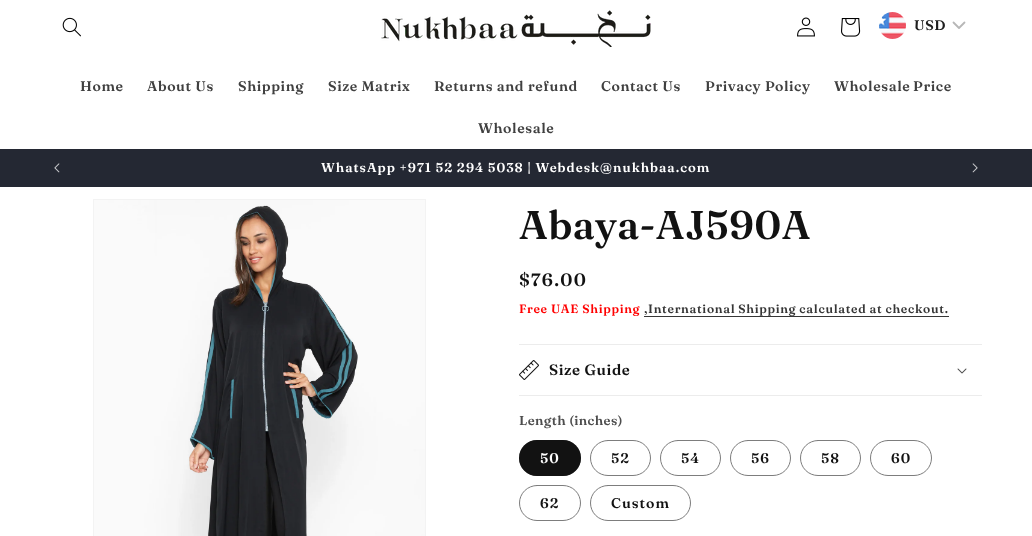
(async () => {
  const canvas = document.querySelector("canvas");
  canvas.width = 1032;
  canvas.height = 536;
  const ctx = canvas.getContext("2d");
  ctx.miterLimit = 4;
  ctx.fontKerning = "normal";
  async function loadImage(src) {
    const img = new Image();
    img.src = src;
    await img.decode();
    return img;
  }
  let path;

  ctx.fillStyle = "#ffffff";
  ctx.fillRect(0, 0, 1032, 536);
  ctx.drawImage(await loadImage("img/1.png"), 62, 17, 19, 20);
  ctx.drawImage(await loadImage("img/2.png"), 381, 10, 270, 37);
  ctx.drawImage(await loadImage("img/3.png"), 797, 17, 18, 20);
  ctx.drawImage(await loadImage("img/4.png"), 841, 18, 20, 19);
  ctx.drawImage(await loadImage("img/5.png"), 879, 12, 27, 27);
  path = new Path2D("M953.5 22.5L959 28L964.5 22.5");
  ctx.strokeStyle = "#b7b7b7";
  ctx.lineWidth = 1.8;
  ctx.lineCap = "round";
  ctx.lineJoin = "round";
  ctx.stroke(path);
  ctx.fillStyle = "#242833";
  ctx.fillRect(0, 149, 1032, 38);
  ctx.drawImage(await loadImage("img/6.png"), 54, 163, 6, 10);
  ctx.drawImage(await loadImage("img/7.png"), 972, 163, 6, 10);
  ctx.strokeStyle = "#f3f3f3";
  ctx.lineWidth = 1;
  ctx.lineJoin = "miter";
  ctx.strokeRect(93.5, 199.5, 332, 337);
  ctx.drawImage(await loadImage("img/8.png"), 94, 200, 331, 336);
  for (const [x, y, w, h, color] of [
    [644, 316, 305, 1, "#363636"],
    [519, 344, 463, 1, "#ececec"],
    [519, 395, 463, 1, "#ececec"],
  ]) {
    ctx.fillStyle = color;
    ctx.fillRect(x, y, w, h);
  }
  ctx.drawImage(await loadImage("img/9.png"), 519, 360, 20, 20);
  ctx.drawImage(await loadImage("img/10.png"), 957, 368, 10, 6);
  ctx.fillStyle = "#121212";
  ctx.beginPath();
  ctx.roundRect(519, 440, 62, 36, 18);
  ctx.fill();
  ctx.beginPath();
  ctx.roundRect(519.5, 440.5, 61, 35, 17.5);
  ctx.strokeStyle = "rgba(18, 18, 18, 0.55)";
  ctx.stroke();
  ctx.beginPath();
  ctx.roundRect(590.5, 440.5, 60, 35, 17.5);
  ctx.strokeStyle = "#7d7d7d";
  ctx.stroke();
  ctx.beginPath();
  ctx.roundRect(660.5, 440.5, 60, 35, 17.5);
  ctx.stroke();
  ctx.beginPath();
  ctx.roundRect(730.5, 440.5, 60, 35, 17.5);
  ctx.stroke();
  ctx.beginPath();
  ctx.roundRect(800.5, 440.5, 60, 35, 17.5);
  ctx.stroke();
  ctx.beginPath();
  ctx.roundRect(870.5, 440.5, 61, 35, 17.5);
  ctx.stroke();
  ctx.beginPath();
  ctx.roundRect(519.5, 485.5, 61, 35, 17.5);
  ctx.stroke();
  ctx.beginPath();
  ctx.roundRect(590.5, 485.5, 100, 35, 17.5);
  ctx.stroke();
  ctx.letterSpacing = "0.6px";
  ctx.font = "600 14px Fraunces";
  ctx.fillStyle = "#1e1e1e";
  ctx.fillText("USD", 914, 30);
  ctx.fillStyle = "#404040";
  for (const [text, x, y] of [
    ["Home", 80, 91],
    ["About Us", 147, 91],
    ["Shipping", 238, 91],
    ["Size Matrix", 328, 91],
    ["Returns and refund", 434, 91],
    ["Contact Us", 601, 91],
    ["Privacy Policy", 705, 91],
  ]) {
    ctx.fillText(text, x, y);
  }
  ctx.wordSpacing = "-1px";
  ctx.fillText("Wholesale Price", 834, 91);
  ctx.wordSpacing = "0px";
  ctx.fillText("Wholesale", 478, 133);
  ctx.letterSpacing = "1px";
  ctx.wordSpacing = "-0.25px";
  ctx.font = "600 13px Fraunces";
  ctx.fillStyle = "#ffffff";
  ctx.fillText("WhatsApp +971 52 294 5038 | Webdesk@nukhbaa.com", 321, 172);
  ctx.letterSpacing = "0.6px";
  ctx.wordSpacing = "0px";
  ctx.font = "600 40px 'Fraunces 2'";
  ctx.fillStyle = "#121212";
  ctx.fillText("Abaya-AJ590A", 519, 239);
  ctx.letterSpacing = "1.25px";
  ctx.font = "600 18px 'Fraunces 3'";
  ctx.fillText("$76.00", 519, 286);
  ctx.letterSpacing = "0.7px";
  ctx.font = "600 12px Fraunces";
  ctx.fillStyle = "#ff0000";
  ctx.fillText("Free UAE Shipping", 519, 313);
  ctx.wordSpacing = "-0.25px";
  ctx.fillStyle = "#363636";
  ctx.fillText(",International Shipping calculated at checkout.", 644, 313);
  ctx.letterSpacing = "0.6px";
  ctx.wordSpacing = "0px";
  ctx.font = "600 15px 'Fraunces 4'";
  ctx.fillStyle = "#121212";
  ctx.fillText("Size Guide", 549, 375);
  ctx.letterSpacing = "0.4px";
  ctx.font = "600 13px Fraunces";
  ctx.fillStyle = "#4d4d4d";
  ctx.fillText("Length (inches)", 519, 425);
  ctx.letterSpacing = "1px";
  ctx.font = "600 14px Fraunces";
  ctx.fillStyle = "#ffffff";
  ctx.fillText("50", 540, 463);
  ctx.fillStyle = "#121212";
  for (const [text, x, y] of [
    ["52", 611, 463],
    ["54", 681, 463],
    ["56", 751, 463],
    ["58", 821, 463],
    ["60", 891, 463],
    ["62", 540, 508],
    ["Custom", 611, 508],
  ]) {
    ctx.fillText(text, x, y);
  }
})();
